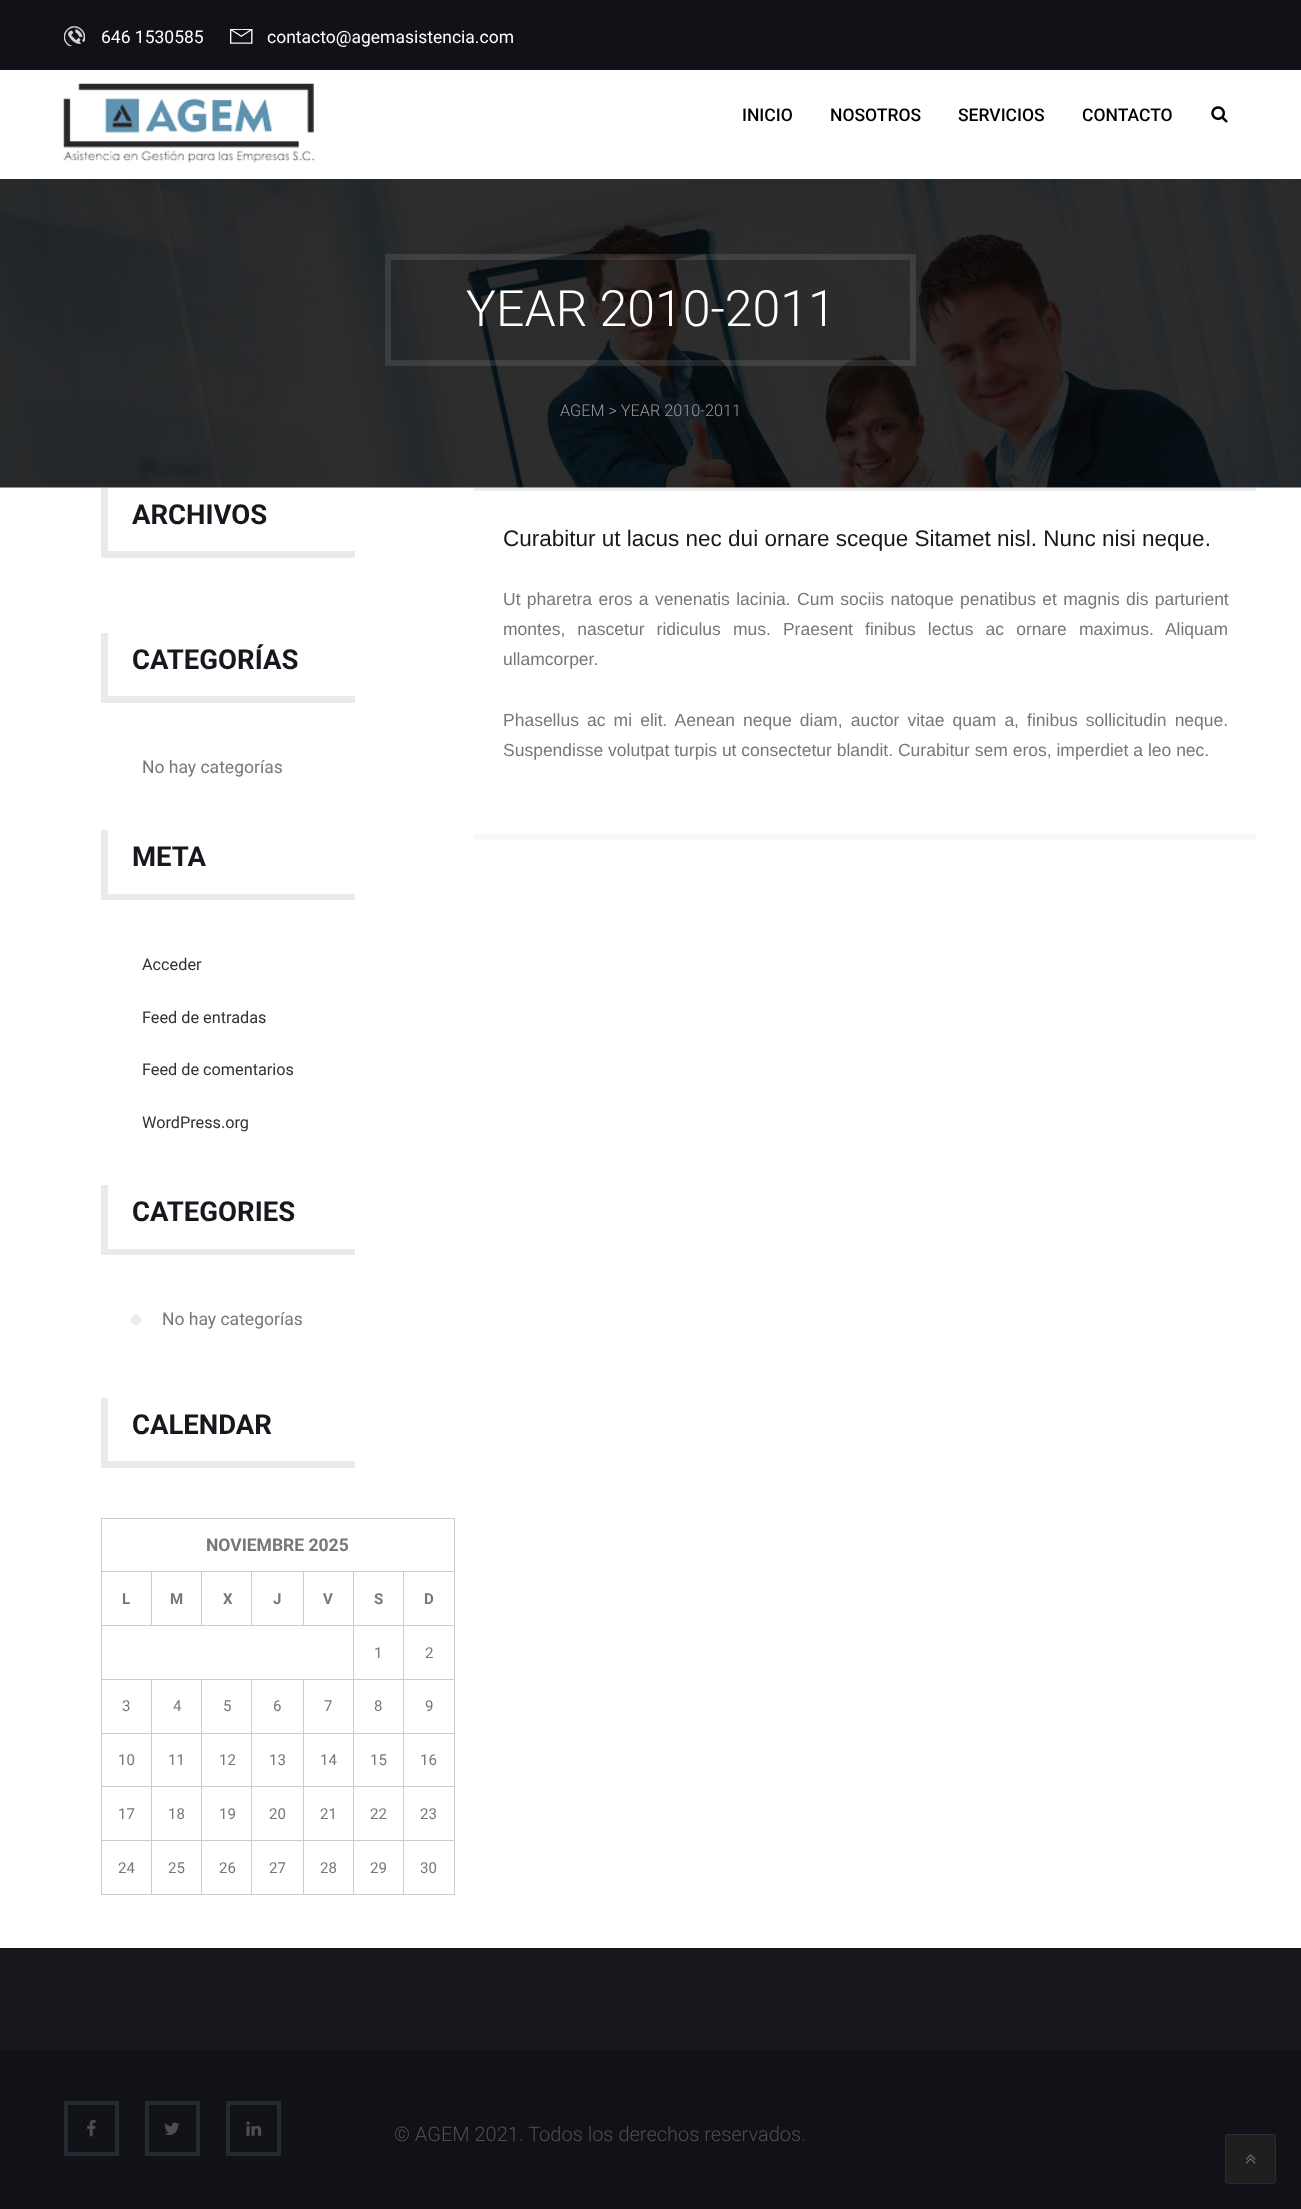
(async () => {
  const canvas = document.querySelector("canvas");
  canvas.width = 1301;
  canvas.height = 2209;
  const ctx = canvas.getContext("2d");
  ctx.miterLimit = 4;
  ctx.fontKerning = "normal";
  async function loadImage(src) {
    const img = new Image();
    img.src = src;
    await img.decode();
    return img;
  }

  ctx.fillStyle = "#16181e";
  ctx.fillRect(0, 0, 1301, 2209);
  for (const [x, y, w, h, color] of [
    [0, 487, 1301, 1461, "#ffffff"],
    [0, 70, 1301, 109, "#ffffff"],
    [0, 0, 1301, 70, "#111217"],
  ]) {
    ctx.fillStyle = color;
    ctx.fillRect(x, y, w, h);
  }
  ctx.drawImage(await loadImage("img/1.png"), 64, 26, 21, 20);
  ctx.drawImage(await loadImage("img/2.png"), 230, 29, 23, 15);
  ctx.drawImage(await loadImage("img/3.png"), 63, 83, 251, 80);
  ctx.drawImage(await loadImage("img/4.png"), 1211, 106, 17, 17);
  ctx.drawImage(await loadImage("img/5.png"), 0, 179, 1301, 309);
  ctx.strokeStyle = "rgba(255, 255, 255, 0.1)";
  ctx.lineWidth = 6;
  ctx.strokeRect(388, 257, 525, 106);
  for (const [x, y, w, h, color] of [
    [101, 551, 254, 7, "#eaeaea"],
    [101, 488, 7, 70, "#eaeaea"],
    [101, 696, 254, 7, "#eaeaea"],
    [101, 633, 7, 70, "#eaeaea"],
    [101, 894, 254, 6, "#eaeaea"],
    [101, 830, 7, 70, "#eaeaea"],
    [101, 1249, 254, 6, "#eaeaea"],
    [101, 1185, 7, 70, "#eaeaea"],
  ]) {
    ctx.fillStyle = color;
    ctx.fillRect(x, y, w, h);
  }
  ctx.beginPath();
  ctx.arc(136, 1320, 5, 0, Math.PI * 2);
  ctx.fill();
  for (const [x, y, w, h, color] of [
    [101, 1461, 254, 7, "#eaeaea"],
    [101, 1398, 7, 70, "#eaeaea"],
    [101, 1518, 354, 1, "#cccccc"],
    [454, 1518, 1, 377, "#cccccc"],
    [101, 1894, 354, 1, "#cccccc"],
    [101, 1518, 1, 377, "#cccccc"],
    [403, 1571, 52, 1, "#cccccc"],
    [403, 1625, 52, 1, "#cccccc"],
    [403, 1679, 52, 1, "#cccccc"],
    [403, 1733, 52, 1, "#cccccc"],
    [403, 1786, 52, 1, "#cccccc"],
    [403, 1840, 52, 1, "#cccccc"],
    [403, 1840, 1, 55, "#cccccc"],
    [353, 1840, 51, 1, "#cccccc"],
    [403, 1786, 1, 55, "#cccccc"],
    [353, 1786, 51, 1, "#cccccc"],
    [403, 1733, 1, 55, "#cccccc"],
    [353, 1733, 51, 1, "#cccccc"],
    [403, 1679, 1, 55, "#cccccc"],
    [353, 1679, 51, 1, "#cccccc"],
    [403, 1625, 1, 55, "#cccccc"],
    [353, 1625, 51, 1, "#cccccc"],
    [403, 1571, 1, 55, "#cccccc"],
    [353, 1571, 51, 1, "#cccccc"],
    [353, 1840, 1, 55, "#cccccc"],
    [303, 1840, 51, 1, "#cccccc"],
    [353, 1786, 1, 55, "#cccccc"],
    [303, 1786, 51, 1, "#cccccc"],
    [353, 1733, 1, 55, "#cccccc"],
    [303, 1733, 51, 1, "#cccccc"],
    [353, 1679, 1, 55, "#cccccc"],
    [303, 1679, 51, 1, "#cccccc"],
    [353, 1625, 1, 55, "#cccccc"],
    [101, 1625, 253, 1, "#cccccc"],
    [353, 1571, 1, 55, "#cccccc"],
    [303, 1571, 51, 1, "#cccccc"],
    [303, 1571, 1, 55, "#cccccc"],
    [251, 1571, 53, 1, "#cccccc"],
    [251, 1571, 1, 55, "#cccccc"],
    [201, 1571, 52, 1, "#cccccc"],
    [201, 1571, 1, 55, "#cccccc"],
    [151, 1571, 52, 1, "#cccccc"],
    [151, 1571, 1, 55, "#cccccc"],
    [101, 1571, 52, 1, "#cccccc"],
    [303, 1840, 1, 55, "#cccccc"],
    [251, 1840, 53, 1, "#cccccc"],
    [303, 1786, 1, 55, "#cccccc"],
    [251, 1786, 53, 1, "#cccccc"],
    [303, 1733, 1, 55, "#cccccc"],
    [251, 1733, 53, 1, "#cccccc"],
    [303, 1679, 1, 55, "#cccccc"],
    [251, 1679, 53, 1, "#cccccc"],
    [251, 1840, 1, 55, "#cccccc"],
    [201, 1840, 52, 1, "#cccccc"],
    [251, 1786, 1, 55, "#cccccc"],
    [201, 1786, 52, 1, "#cccccc"],
    [251, 1733, 1, 55, "#cccccc"],
    [201, 1733, 52, 1, "#cccccc"],
    [251, 1679, 1, 55, "#cccccc"],
    [201, 1679, 52, 1, "#cccccc"],
    [201, 1840, 1, 55, "#cccccc"],
    [151, 1840, 52, 1, "#cccccc"],
    [201, 1786, 1, 55, "#cccccc"],
    [151, 1786, 52, 1, "#cccccc"],
    [201, 1733, 1, 55, "#cccccc"],
    [151, 1733, 52, 1, "#cccccc"],
    [201, 1679, 1, 55, "#cccccc"],
    [151, 1679, 52, 1, "#cccccc"],
    [151, 1840, 1, 55, "#cccccc"],
    [101, 1840, 52, 1, "#cccccc"],
    [151, 1786, 1, 55, "#cccccc"],
    [101, 1786, 52, 1, "#cccccc"],
    [151, 1733, 1, 55, "#cccccc"],
    [101, 1733, 52, 1, "#cccccc"],
    [151, 1679, 1, 55, "#cccccc"],
    [101, 1679, 52, 1, "#cccccc"],
    [474, 834, 782, 6, "#f8f8f8"],
    [474, 488, 782, 3, "#ededed"],
    [0, 2049, 1301, 160, "#111217"],
  ]) {
    ctx.fillStyle = color;
    ctx.fillRect(x, y, w, h);
  }
  ctx.strokeStyle = "#272930";
  ctx.lineWidth = 4;
  ctx.strokeRect(66, 2103, 51, 51);
  ctx.drawImage(await loadImage("img/6.png"), 87, 2120, 9, 17);
  ctx.strokeRect(147, 2103, 51, 51);
  ctx.drawImage(await loadImage("img/7.png"), 164, 2122, 16, 13);
  ctx.strokeRect(228, 2103, 51, 51);
  ctx.drawImage(await loadImage("img/8.png"), 246, 2121, 16, 15);
  ctx.fillStyle = "#1f1f20";
  ctx.beginPath();
  ctx.roundRect(1225.5, 2134.5, 50, 49, 2);
  ctx.fill();
  ctx.strokeStyle = "#2c2c2d";
  ctx.lineWidth = 1;
  ctx.stroke();
  ctx.drawImage(await loadImage("img/9.png"), 1245, 2154, 11, 10);
  ctx.font = "17.5px Roboto";
  ctx.fillStyle = "#ffffff";
  ctx.fillText("646 1530585", 101, 43);
  ctx.fillText("contacto@agemasistencia.com", 267, 43);
  ctx.font = "500 17.5px Roboto";
  ctx.fillStyle = "#000000";
  for (const [text, x, y] of [
    ["INICIO", 742, 121],
    ["NOSOTROS", 830, 121],
    ["SERVICIOS", 958, 121],
    ["CONTACTO", 1082, 121],
  ]) {
    ctx.fillText(text, x, y);
  }
  ctx.font = "300 50px Roboto";
  ctx.fillStyle = "#ffffff";
  ctx.fillText("YEAR 2010-2011", 466, 326);
  ctx.font = "300 16.25px Roboto";
  ctx.fillStyle = "#999999";
  ctx.fillText("AGEM > YEAR 2010-2011", 560, 416);
  ctx.font = "bold 27.5px Roboto";
  ctx.fillStyle = "#16181e";
  ctx.fillText("ARCHIVOS", 132, 524);
  ctx.fillText("CATEGORÍAS", 132, 669);
  ctx.font = "17.5px Roboto";
  ctx.fillStyle = "#777777";
  ctx.fillText("No hay categorías", 142, 773);
  ctx.font = "bold 27.5px Roboto";
  ctx.fillStyle = "#16181e";
  ctx.fillText("META", 132, 866);
  ctx.font = "16.25px Roboto";
  ctx.fillStyle = "#323232";
  for (const [text, x, y] of [
    ["Acceder", 142, 970],
    ["Feed de entradas", 142, 1023],
    ["Feed de comentarios", 142, 1075],
    ["WordPress.org", 142, 1128],
  ]) {
    ctx.fillText(text, x, y);
  }
  ctx.font = "bold 27.5px Roboto";
  ctx.fillStyle = "#16181e";
  ctx.fillText("CATEGORIES", 132, 1221);
  ctx.font = "17.5px Roboto";
  ctx.fillStyle = "#777777";
  ctx.fillText("No hay categorías", 162, 1325);
  ctx.font = "bold 27.5px Roboto";
  ctx.fillStyle = "#16181e";
  ctx.fillText("CALENDAR", 132, 1434);
  ctx.font = "bold 17.5px Roboto";
  ctx.fillStyle = "#777777";
  ctx.fillText("NOVIEMBRE 2025", 206, 1551);
  ctx.font = "bold 15px Roboto";
  for (const [text, x, y] of [
    ["L", 122, 1604],
    ["M", 170, 1604],
    ["X", 223, 1604],
    ["J", 273, 1604],
    ["V", 323, 1604],
    ["S", 374, 1604],
    ["D", 424, 1604],
  ]) {
    ctx.fillText(text, x, y);
  }
  ctx.font = "15px Roboto";
  for (const [text, x, y] of [
    ["1", 374, 1658],
    ["2", 425, 1658],
    ["3", 122, 1711],
    ["4", 173, 1711],
    ["5", 223, 1711],
    ["6", 273, 1711],
    ["7", 324, 1711],
    ["8", 374, 1711],
    ["9", 425, 1711],
    ["10", 118, 1765],
    ["11", 168, 1765],
    ["12", 219, 1765],
    ["13", 269, 1765],
    ["14", 320, 1765],
    ["15", 370, 1765],
    ["16", 420, 1765],
    ["17", 118, 1819],
    ["18", 168, 1819],
    ["19", 219, 1819],
    ["20", 269, 1819],
    ["21", 320, 1819],
    ["22", 370, 1819],
    ["23", 420, 1819],
    ["24", 118, 1873],
    ["25", 168, 1873],
    ["26", 219, 1873],
    ["27", 269, 1873],
    ["28", 320, 1873],
    ["29", 370, 1873],
    ["30", 420, 1873],
  ]) {
    ctx.fillText(text, x, y);
  }
  ctx.font = "22.5px Liberation Sans";
  ctx.fillStyle = "#16181e";
  ctx.fillText("Curabitur ut lacus nec dui ornare sceque Sitamet nisl. Nunc nisi neque.", 503, 546);
  ctx.wordSpacing = "1.5px";
  ctx.font = "17.5px Liberation Sans";
  ctx.fillStyle = "#777777";
  ctx.fillText("Ut pharetra eros a venenatis lacinia. Cum sociis natoque penatibus et magnis dis parturient", 503, 605);
  ctx.wordSpacing = "7.25px";
  ctx.fillText("montes, nascetur ridiculus mus. Praesent finibus lectus ac ornare maximus. Aliquam", 503, 635);
  ctx.wordSpacing = "0px";
  ctx.fillText("ullamcorper.", 503, 665);
  ctx.wordSpacing = "3.25px";
  ctx.fillText("Phasellus ac mi elit. Aenean neque diam, auctor vitae quam a, finibus sollicitudin neque.", 503, 726);
  ctx.wordSpacing = "0px";
  ctx.fillText("Suspendisse volutpat turpis ut consectetur blandit. Curabitur sem eros, imperdiet a leo nec.", 503, 756);
  ctx.font = "300 20px Roboto";
  ctx.fillStyle = "#4c4e54";
  ctx.fillText("© AGEM 2021. Todos los derechos reservados.", 394, 2141);
})();
